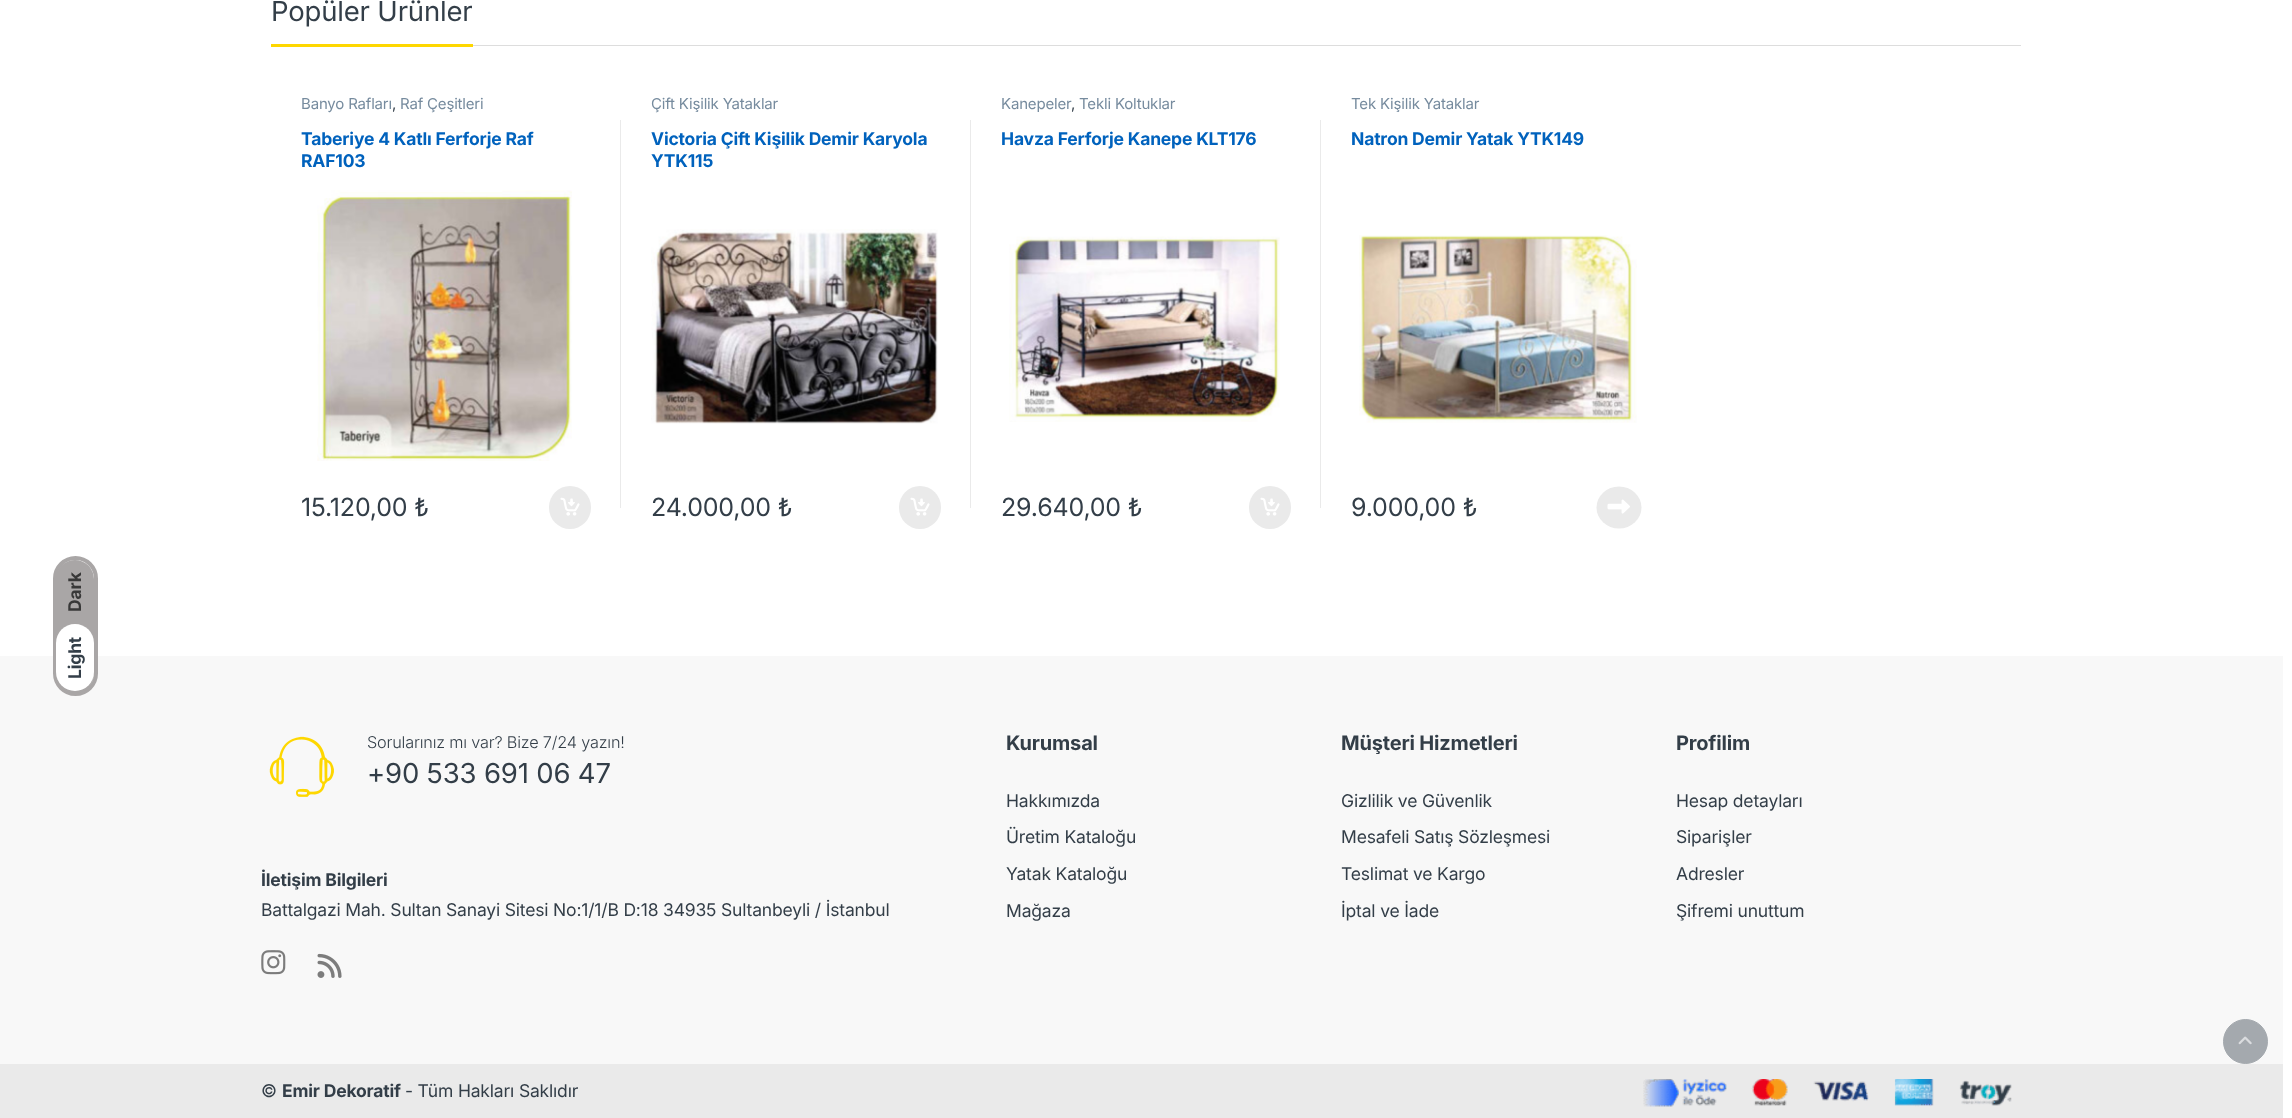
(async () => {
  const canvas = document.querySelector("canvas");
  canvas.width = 2292;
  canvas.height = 1118;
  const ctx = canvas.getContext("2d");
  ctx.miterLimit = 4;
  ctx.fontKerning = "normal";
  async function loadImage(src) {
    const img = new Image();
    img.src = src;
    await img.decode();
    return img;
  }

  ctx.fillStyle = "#ffffff";
  ctx.fillRect(0, 0, 2292, 1118);
  ctx.fillStyle = "#f8f8f8";
  ctx.fillRect(0, 656, 2283, 408);
  ctx.beginPath();
  ctx.roundRect(55, 558, 41, 136, 20.5);
  ctx.strokeStyle = "#a9a6a6";
  ctx.lineWidth = 4;
  ctx.stroke();
  ctx.fillStyle = "#a9a6a6";
  ctx.beginPath();
  ctx.roundRect(56, 560, 38, 133, 19);
  ctx.fill();
  ctx.fillStyle = "#ffffff";
  ctx.beginPath();
  ctx.roundRect(56, 624, 38, 67, 19);
  ctx.fill();
  ctx.fillStyle = "#dddddd";
  ctx.fillRect(473, 45, 1548, 1);
  ctx.fillStyle = "#fed700";
  ctx.fillRect(271, 44, 202, 3);
  ctx.drawImage(await loadImage("img/1.png"), 317, 190, 255, 271);
  ctx.fillStyle = "#eaeaea";
  ctx.beginPath();
  ctx.roundRect(549, 486, 42, 43, 21);
  ctx.fill();
  ctx.drawImage(await loadImage("img/2.png"), 560, 497, 20, 19);
  ctx.fillRect(620, 120, 1, 388);
  ctx.drawImage(await loadImage("img/3.png"), 651, 229, 287, 195);
  ctx.beginPath();
  ctx.roundRect(899, 486, 42, 43, 21);
  ctx.fill();
  ctx.drawImage(await loadImage("img/2.png"), 910, 497, 20, 19);
  ctx.fillRect(970, 120, 1, 388);
  ctx.drawImage(await loadImage("img/4.png"), 1009, 236, 271, 186);
  ctx.beginPath();
  ctx.roundRect(1249, 486, 42, 43, 21);
  ctx.fill();
  ctx.drawImage(await loadImage("img/2.png"), 1260, 497, 20, 19);
  ctx.fillRect(1320, 120, 1, 388);
  ctx.drawImage(await loadImage("img/5.png"), 1359, 235, 278, 188);
  ctx.beginPath();
  ctx.ellipse(1619, 507.5, 22.5, 21, 0, 0, Math.PI * 2);
  ctx.fill();
  ctx.drawImage(await loadImage("img/6.png"), 1607, 499, 23, 15);
  ctx.drawImage(await loadImage("img/7.png"), 269, 736, 65, 61);
  ctx.drawImage(await loadImage("img/8.png"), 261, 950, 25, 25);
  ctx.drawImage(await loadImage("img/9.png"), 317, 953, 25, 25);
  ctx.fillRect(0, 1064, 2283, 54);
  ctx.drawImage(await loadImage("img/10.png"), 1643, 1079, 369, 28);
  ctx.fillStyle = "#a4a9ae";
  ctx.beginPath();
  ctx.arc(2245.5, 1041.5, 22, 0, Math.PI * 2);
  ctx.fill();
  ctx.strokeStyle = "#a4a9ae";
  ctx.lineWidth = 1;
  ctx.stroke();
  ctx.drawImage(await loadImage("img/11.png"), 2238, 1036, 14, 9);
  ctx.letterSpacing = "-0.18px";
  ctx.font = "bold 17.5px Inter";
  ctx.fillStyle = "#383838";
  ctx.save();
  ctx.translate(81, 612);
  ctx.rotate(-90 * Math.PI / 180);
  ctx.fillText("Dark", 0, 0);
  ctx.restore();
  ctx.fillStyle = "#333e48";
  ctx.save();
  ctx.translate(81, 679);
  ctx.rotate(-90 * Math.PI / 180);
  ctx.fillText("Light", 0, 0);
  ctx.restore();
  ctx.font = "27.5px Inter";
  ctx.fillText("Popüler Ürünler", 271, 21);
  ctx.font = "15px Inter";
  ctx.fillStyle = "#768b9e";
  ctx.fillText("Banyo Rafları", 301, 109);
  ctx.fillStyle = "#333e48";
  ctx.fillText(",", 392, 109);
  ctx.fillStyle = "#768b9e";
  ctx.fillText("Raf Çeşitleri", 400, 109);
  ctx.font = "bold 17.5px Inter";
  ctx.fillStyle = "#0062bd";
  ctx.fillText("Taberiye 4 Katlı Ferforje Raf", 301, 145);
  ctx.fillText("RAF103", 301, 167);
  ctx.font = "25px Inter";
  ctx.fillStyle = "#333e48";
  ctx.fillText("15.120,00 ₺", 301, 516);
  ctx.font = "15px Inter";
  ctx.fillStyle = "#768b9e";
  ctx.fillText("Çift Kişilik Yataklar", 651, 109);
  ctx.font = "bold 17.5px Inter";
  ctx.fillStyle = "#0062bd";
  ctx.fillText("Victoria Çift Kişilik Demir Karyola", 651, 145);
  ctx.fillText("YTK115", 651, 167);
  ctx.font = "25px Inter";
  ctx.fillStyle = "#333e48";
  ctx.fillText("24.000,00 ₺", 651, 516);
  ctx.font = "15px Inter";
  ctx.fillStyle = "#768b9e";
  ctx.fillText("Kanepeler", 1001, 109);
  ctx.fillStyle = "#333e48";
  ctx.fillText(",", 1071, 109);
  ctx.fillStyle = "#768b9e";
  ctx.fillText("Tekli Koltuklar", 1079, 109);
  ctx.font = "bold 17.5px Inter";
  ctx.fillStyle = "#0062bd";
  ctx.fillText("Havza Ferforje Kanepe KLT176", 1001, 145);
  ctx.font = "25px Inter";
  ctx.fillStyle = "#333e48";
  ctx.fillText("29.640,00 ₺", 1001, 516);
  ctx.font = "15px Inter";
  ctx.fillStyle = "#768b9e";
  ctx.fillText("Tek Kişilik Yataklar", 1351, 109);
  ctx.font = "bold 17.5px Inter";
  ctx.fillStyle = "#0062bd";
  ctx.fillText("Natron Demir Yatak YTK149", 1351, 145);
  ctx.font = "25px Inter";
  ctx.fillStyle = "#333e48";
  ctx.fillText("9.000,00 ₺", 1351, 516);
  ctx.font = "300 16.25px Inter";
  ctx.fillText("Sorularınız mı var? Bize 7/24 yazın!", 367, 748);
  ctx.font = "27.5px Inter";
  ctx.fillText("+90 533 691 06 47", 367, 783);
  ctx.font = "bold 17.5px Inter";
  ctx.fillText("İletişim Bilgileri", 261, 886);
  ctx.font = "17.5px Inter";
  ctx.fillText("Battalgazi Mah. Sultan Sanayi Sitesi No:1/1/B D:18 34935 Sultanbeyli / İstanbul", 261, 916);
  ctx.font = "bold 20px Inter";
  ctx.fillText("Kurumsal", 1006, 750);
  ctx.font = "17.5px Inter";
  for (const [text, x, y] of [
    ["Hakkımızda", 1006, 807],
    ["Üretim Kataloğu", 1006, 843],
    ["Yatak Kataloğu", 1006, 880],
    ["Mağaza", 1006, 917],
  ]) {
    ctx.fillText(text, x, y);
  }
  ctx.font = "bold 20px Inter";
  ctx.fillText("Müşteri Hizmetleri", 1341, 750);
  ctx.font = "17.5px Inter";
  for (const [text, x, y] of [
    ["Gizlilik ve Güvenlik", 1341, 807],
    ["Mesafeli Satış Sözleşmesi", 1341, 843],
    ["Teslimat ve Kargo", 1341, 880],
    ["İptal ve İade", 1341, 917],
  ]) {
    ctx.fillText(text, x, y);
  }
  ctx.font = "bold 20px Inter";
  ctx.fillText("Profilim", 1676, 750);
  ctx.font = "17.5px Inter";
  for (const [text, x, y] of [
    ["Hesap detayları", 1676, 807],
    ["Siparişler", 1676, 843],
    ["Adresler", 1676, 880],
    ["Şifremi unuttum", 1676, 917],
    ["©", 261, 1097],
  ]) {
    ctx.fillText(text, x, y);
  }
  ctx.font = "bold 17.5px Inter";
  ctx.fillText("Emir Dekoratif", 282, 1097);
  ctx.font = "17.5px Inter";
  ctx.fillText("- Tüm Hakları Saklıdır", 405, 1097);
})();
